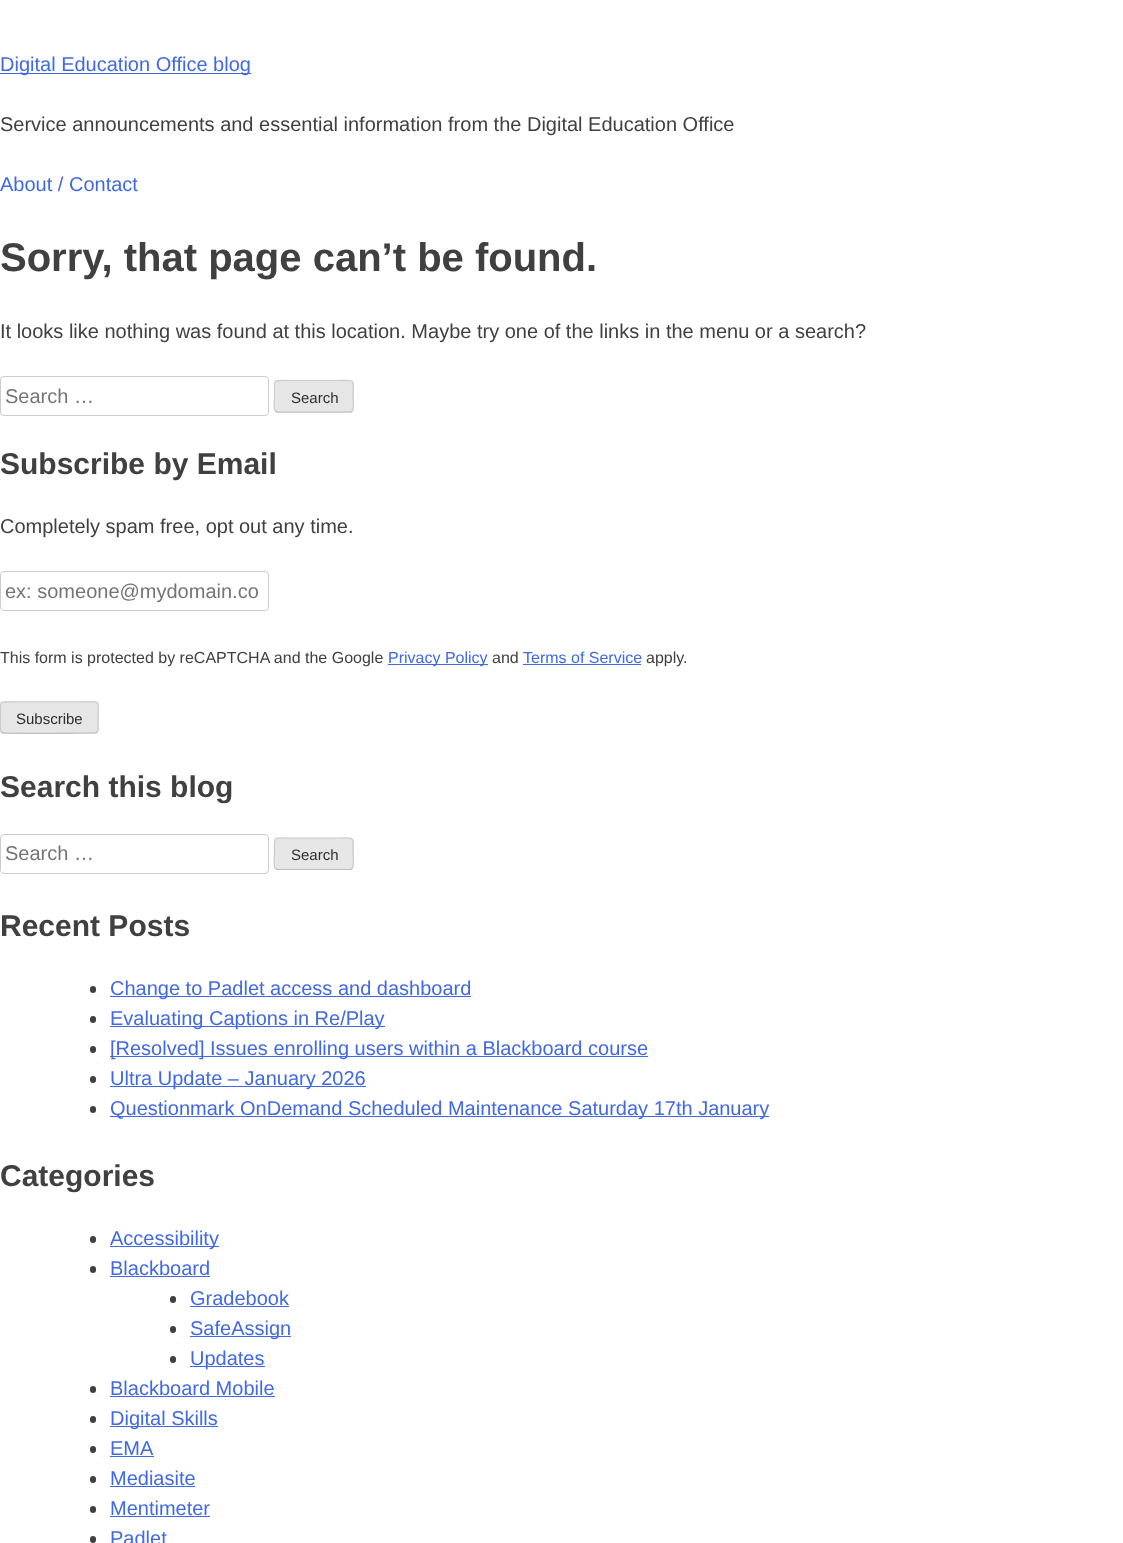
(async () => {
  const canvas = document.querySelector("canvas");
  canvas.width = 1123;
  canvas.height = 1543;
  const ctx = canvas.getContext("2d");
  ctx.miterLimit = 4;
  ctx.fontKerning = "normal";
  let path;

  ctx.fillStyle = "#ffffff";
  ctx.fillRect(0, 0, 1123, 1543);
  ctx.fillStyle = "#4169e1";
  ctx.fillRect(0, 73, 251, 1);
  ctx.beginPath();
  ctx.roundRect(0.5, 376.5, 268, 39, 3.5);
  ctx.strokeStyle = "#cccccc";
  ctx.stroke();
  ctx.fillStyle = "#e6e6e6";
  ctx.beginPath();
  ctx.roundRect(274, 380, 80, 33, 4);
  ctx.fill();
  path = new Path2D("M352 411L350.5 412H277L275.5 411");
  ctx.strokeStyle = "#bbbbbb";
  ctx.lineWidth = 1.2;
  ctx.stroke(path);
  path = new Path2D("M275.5 411C273 409 274.5 399 274.5 396C274.5 378 271.5 380.5 289.5 380.5H338C356 380.5 353 378 353 396C353 399 354.5 409 352 411");
  ctx.strokeStyle = "#cccccc";
  ctx.stroke(path);
  ctx.beginPath();
  ctx.roundRect(0.5, 571.5, 268, 39, 3.5);
  ctx.lineWidth = 1;
  ctx.stroke();
  ctx.fillStyle = "#4169e1";
  ctx.fillRect(388, 664, 100, 1);
  ctx.fillRect(523, 664, 118, 1);
  ctx.fillStyle = "#e6e6e6";
  ctx.beginPath();
  ctx.roundRect(0, 701, 99, 33, 4);
  ctx.fill();
  path = new Path2D("M97 732L95 733H80C71.5 733 4 734 2 732.5L1.5 732");
  ctx.strokeStyle = "#bbbbbb";
  ctx.lineWidth = 1.2;
  ctx.stroke(path);
  path = new Path2D("M1.5 732C-.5 730 .5 720.5 .5 717.5C.5 698-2 702 19 702H80C102.5 702 98 698.5 98 721.5C98 724 99.5 730 97 732");
  ctx.strokeStyle = "#cccccc";
  ctx.stroke(path);
  ctx.beginPath();
  ctx.roundRect(0.5, 834.5, 268, 39, 3.5);
  ctx.lineWidth = 1;
  ctx.stroke();
  ctx.beginPath();
  ctx.roundRect(274, 838, 80, 32, 4);
  ctx.fill();
  path = new Path2D("M352 868.5L350.5 869.5H277L275.5 868.5");
  ctx.strokeStyle = "#bbbbbb";
  ctx.lineWidth = 1.2;
  ctx.stroke(path);
  path = new Path2D("M275.5 868.5C273 866.5 274.5 856.5 274.5 854C274.5 835.5 271.5 838 289.5 838H338C356 838 353 835.5 353 854C353 856.5 354.5 866.5 352 868.5");
  ctx.strokeStyle = "#cccccc";
  ctx.stroke(path);
  ctx.fillStyle = "#404040";
  ctx.beginPath();
  ctx.roundRect(90, 986, 6, 7, 3);
  ctx.fill();
  ctx.fillStyle = "#4169e1";
  ctx.fillRect(110, 996, 361, 1);
  ctx.fillStyle = "#404040";
  ctx.beginPath();
  ctx.roundRect(90, 1016, 6, 7, 3);
  ctx.fill();
  ctx.fillStyle = "#4169e1";
  ctx.fillRect(110, 1026, 275, 1);
  ctx.fillStyle = "#404040";
  ctx.beginPath();
  ctx.roundRect(90, 1046, 6, 7, 3);
  ctx.fill();
  ctx.fillStyle = "#4169e1";
  ctx.fillRect(110, 1056, 538, 1);
  ctx.fillStyle = "#404040";
  ctx.beginPath();
  ctx.roundRect(90, 1076, 6, 7, 3);
  ctx.fill();
  ctx.fillStyle = "#4169e1";
  ctx.fillRect(110, 1086, 256, 1);
  ctx.fillStyle = "#404040";
  ctx.beginPath();
  ctx.roundRect(90, 1106, 6, 7, 3);
  ctx.fill();
  ctx.fillStyle = "#4169e1";
  ctx.fillRect(110, 1116, 659, 1);
  ctx.fillStyle = "#404040";
  ctx.beginPath();
  ctx.roundRect(90, 1236, 6, 7, 3);
  ctx.fill();
  ctx.fillStyle = "#4169e1";
  ctx.fillRect(110, 1246, 109, 1);
  ctx.fillStyle = "#404040";
  ctx.beginPath();
  ctx.roundRect(90, 1266, 6, 7, 3);
  ctx.fill();
  ctx.fillStyle = "#4169e1";
  ctx.fillRect(110, 1276, 100, 1);
  ctx.fillStyle = "#404040";
  ctx.beginPath();
  ctx.roundRect(170, 1296, 6, 7, 3);
  ctx.fill();
  ctx.fillStyle = "#4169e1";
  ctx.fillRect(190, 1306, 99, 1);
  ctx.fillStyle = "#404040";
  ctx.beginPath();
  ctx.roundRect(170, 1326, 6, 7, 3);
  ctx.fill();
  ctx.fillStyle = "#4169e1";
  ctx.fillRect(190, 1336, 101, 1);
  ctx.fillStyle = "#404040";
  ctx.beginPath();
  ctx.roundRect(170, 1356, 6, 7, 3);
  ctx.fill();
  ctx.fillStyle = "#4169e1";
  ctx.fillRect(190, 1366, 75, 1);
  ctx.fillStyle = "#404040";
  ctx.beginPath();
  ctx.roundRect(90, 1386, 6, 7, 3);
  ctx.fill();
  ctx.fillStyle = "#4169e1";
  ctx.fillRect(110, 1396, 165, 1);
  ctx.fillStyle = "#404040";
  ctx.beginPath();
  ctx.roundRect(90, 1416, 6, 7, 3);
  ctx.fill();
  ctx.fillStyle = "#4169e1";
  ctx.fillRect(110, 1426, 108, 1);
  ctx.fillStyle = "#404040";
  ctx.beginPath();
  ctx.roundRect(90, 1446, 6, 7, 3);
  ctx.fill();
  ctx.fillStyle = "#4169e1";
  ctx.fillRect(110, 1456, 44, 1);
  ctx.fillStyle = "#404040";
  ctx.beginPath();
  ctx.roundRect(90, 1476, 6, 7, 3);
  ctx.fill();
  ctx.fillStyle = "#4169e1";
  ctx.fillRect(110, 1486, 85, 1);
  ctx.fillStyle = "#404040";
  ctx.beginPath();
  ctx.roundRect(90, 1506, 6, 7, 3);
  ctx.fill();
  ctx.fillStyle = "#4169e1";
  ctx.fillRect(110, 1516, 100, 1);
  ctx.fillStyle = "#404040";
  ctx.beginPath();
  ctx.roundRect(90, 1536, 6, 7, 3);
  ctx.fill();
  ctx.font = "20px Liberation Sans";
  ctx.fillStyle = "#4169e1";
  ctx.fillText("Digital Education Office blog", 0, 71);
  ctx.fillStyle = "#404040";
  ctx.fillText("Service announcements and essential information from the Digital Education Office", 0, 131);
  ctx.fillStyle = "#4169e1";
  ctx.fillText("About / Contact", 0, 191);
  ctx.font = "bold 40px Liberation Sans";
  ctx.fillStyle = "#404040";
  ctx.fillText("Sorry, that page can’t be found.", 0, 271);
  ctx.font = "20px Liberation Sans";
  ctx.fillText("It looks like nothing was found at this location. Maybe try one of the links in the menu or a search?", 0, 338);
  ctx.fillStyle = "#757575";
  ctx.fillText("Search …", 5, 403);
  ctx.font = "15px Liberation Sans";
  ctx.fillStyle = "#2e2e2e";
  ctx.fillText("Search", 291, 403);
  ctx.font = "bold 30px Liberation Sans";
  ctx.fillStyle = "#404040";
  ctx.fillText("Subscribe by Email", 0, 474);
  ctx.font = "20px Liberation Sans";
  ctx.fillText("Completely spam free, opt out any time.", 0, 533);
  ctx.fillStyle = "#757575";
  ctx.fillText("ex: someone@mydomain.co", 5, 598);
  ctx.font = "16px Liberation Sans";
  ctx.fillStyle = "#404040";
  ctx.fillText("This form is protected by reCAPTCHA and the Google", 0, 663);
  ctx.fillStyle = "#4169e1";
  ctx.fillText("Privacy Policy", 388, 663);
  ctx.fillStyle = "#404040";
  ctx.fillText("and", 492, 663);
  ctx.fillStyle = "#4169e1";
  ctx.fillText("Terms of Service", 523, 663);
  ctx.fillStyle = "#404040";
  ctx.fillText("apply.", 646, 663);
  ctx.font = "15px Liberation Sans";
  ctx.fillStyle = "#2e2e2e";
  ctx.fillText("Subscribe", 16, 724);
  ctx.font = "bold 30px Liberation Sans";
  ctx.fillStyle = "#404040";
  ctx.fillText("Search this blog", 0, 797);
  ctx.font = "20px Liberation Sans";
  ctx.fillStyle = "#757575";
  ctx.fillText("Search …", 5, 860);
  ctx.font = "15px Liberation Sans";
  ctx.fillStyle = "#2e2e2e";
  ctx.fillText("Search", 291, 860);
  ctx.font = "bold 30px Liberation Sans";
  ctx.fillStyle = "#404040";
  ctx.fillText("Recent Posts", 0, 936);
  ctx.font = "20px Liberation Sans";
  ctx.fillStyle = "#4169e1";
  for (const [text, x, y] of [
    ["Change to Padlet access and dashboard", 110, 995],
    ["Evaluating Captions in Re/Play", 110, 1025],
    ["[Resolved] Issues enrolling users within a Blackboard course", 110, 1055],
    ["Ultra Update – January 2026", 110, 1085],
    ["Questionmark OnDemand Scheduled Maintenance Saturday 17th January", 110, 1115],
  ]) {
    ctx.fillText(text, x, y);
  }
  ctx.font = "bold 30px Liberation Sans";
  ctx.fillStyle = "#404040";
  ctx.fillText("Categories", 0, 1186);
  ctx.font = "20px Liberation Sans";
  ctx.fillStyle = "#4169e1";
  for (const [text, x, y] of [
    ["Accessibility", 110, 1245],
    ["Blackboard", 110, 1275],
    ["Gradebook", 190, 1305],
    ["SafeAssign", 190, 1335],
    ["Updates", 190, 1365],
    ["Blackboard Mobile", 110, 1395],
    ["Digital Skills", 110, 1425],
    ["EMA", 110, 1455],
    ["Mediasite", 110, 1485],
    ["Mentimeter", 110, 1515],
    ["Padlet", 110, 1545],
  ]) {
    ctx.fillText(text, x, y);
  }
})();
